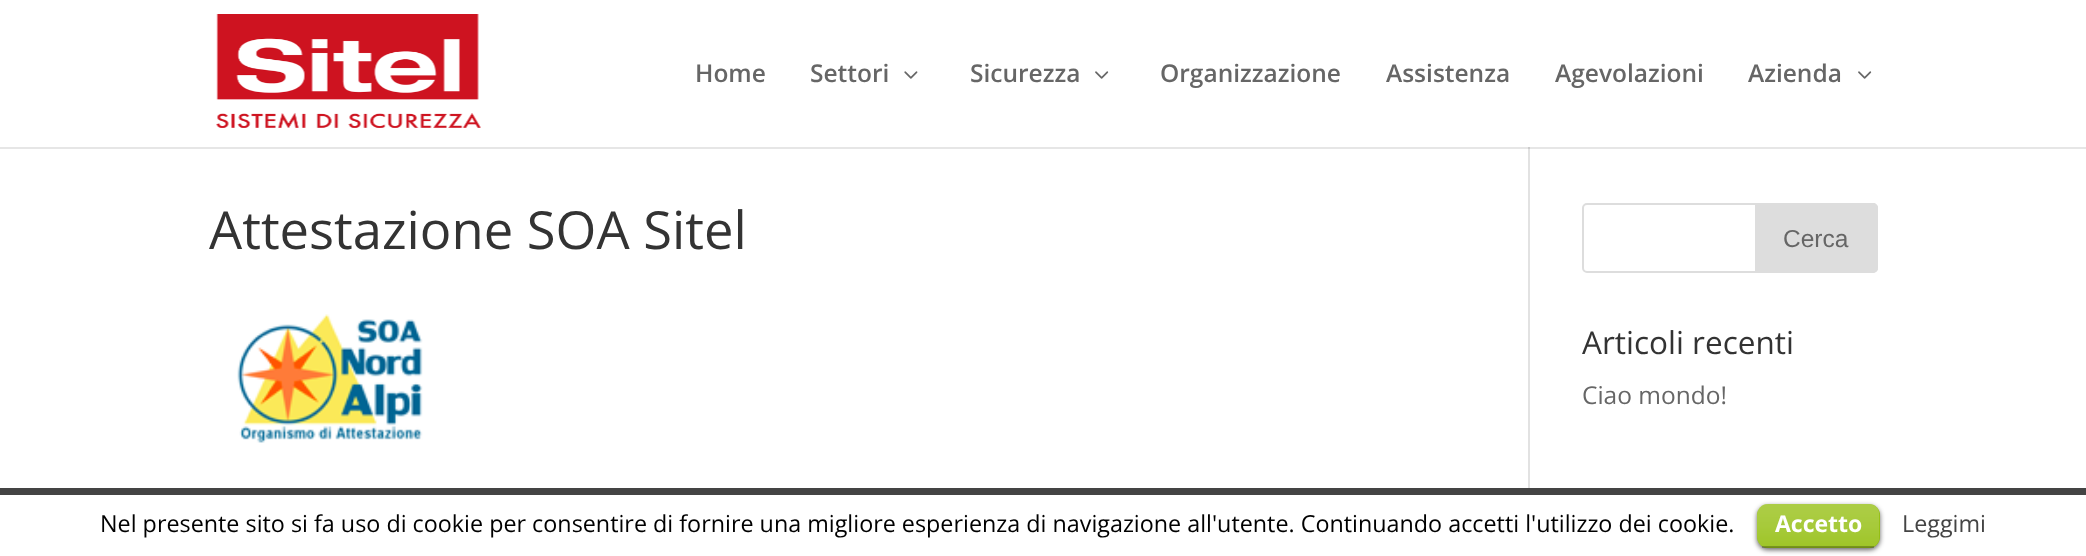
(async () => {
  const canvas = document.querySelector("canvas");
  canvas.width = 2086;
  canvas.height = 556;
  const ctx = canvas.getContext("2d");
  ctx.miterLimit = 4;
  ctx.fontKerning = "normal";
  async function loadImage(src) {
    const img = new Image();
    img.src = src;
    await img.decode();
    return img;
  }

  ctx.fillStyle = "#ffffff";
  ctx.fillRect(0, 0, 2086, 556);
  ctx.fillStyle = "#e6e6e6";
  ctx.fillRect(0, 147, 2086, 2);
  ctx.drawImage(await loadImage("img/1.png"), 216, 14, 265, 114);
  ctx.drawImage(await loadImage("img/2.png"), 904, 71, 14, 8);
  ctx.drawImage(await loadImage("img/3.png"), 1095, 71, 14, 8);
  ctx.drawImage(await loadImage("img/3.png"), 1858, 71, 14, 8);
  ctx.fillStyle = "#e2e2e2";
  ctx.fillRect(1528, 149, 2, 339);
  ctx.fillStyle = "#cbcbcb";
  ctx.fillRect(1528, 147, 2, 2);
  ctx.drawImage(await loadImage("img/4.png"), 237, 314, 186, 129);
  ctx.beginPath();
  ctx.roundRect(1583, 204, 294, 68, 4);
  ctx.strokeStyle = "#dddddd";
  ctx.lineWidth = 2;
  ctx.stroke();
  ctx.fillStyle = "#dddddd";
  ctx.beginPath();
  ctx.roundRect(1756, 204, 121, 68, [0, 4, 4, 0]);
  ctx.fill();
  ctx.stroke();
  ctx.fillStyle = "#444444";
  ctx.fillRect(0, 488, 2086, 7);
  ctx.fillStyle = "rgba(0, 0, 0, 0.6)";
  ctx.filter = "blur(2.5px)";
  ctx.beginPath();
  ctx.roundRect(1757, 506, 123, 44, 11);
  ctx.fill();
  ctx.filter = "none";
  ctx.fillStyle = "#91bd09";
  ctx.beginPath();
  ctx.roundRect(1757, 504, 123, 44, 11);
  ctx.fill();
  ctx.drawImage(await loadImage("img/5.png"), 1757, 504, 123, 44);
  ctx.fillStyle = "rgba(0, 0, 0, 0.25)";
  ctx.fillRect(1762, 546, 112, 2);
  ctx.font = "600 24.5px Open Sans";
  ctx.fillStyle = "#666666";
  for (const [text, x, y] of [
    ["Home", 695, 82],
    ["Settori", 810, 82],
    ["Sicurezza", 970, 82],
    ["Organizzazione", 1160, 82],
    ["Assistenza", 1386, 82],
    ["Agevolazioni", 1555, 82],
    ["Azienda", 1748, 82],
  ]) {
    ctx.fillText(text, x, y);
  }
  ctx.font = "52.5px Open Sans";
  ctx.fillStyle = "#333333";
  ctx.fillText("Attestazione SOA Sitel", 209, 249);
  ctx.font = "24.5px Liberation Sans";
  ctx.fillStyle = "#666666";
  ctx.fillText("Cerca", 1783, 247);
  ctx.font = "31.5px Open Sans";
  ctx.fillStyle = "#333333";
  ctx.fillText("Articoli recenti", 1582, 354);
  ctx.font = "24.5px Open Sans";
  ctx.fillStyle = "#666666";
  ctx.fillText("Ciao mondo!", 1582, 404);
  ctx.font = "23.33px Open Sans";
  ctx.fillStyle = "#000000";
  ctx.fillText("Nel presente sito si fa uso di cookie per consentire di fornire una migliore esperienza di navigazione all'utente. Continuando accetti l'utilizzo dei cookie.", 100, 532);
  ctx.font = "bold 23px Open Sans";
  ctx.fillStyle = "#ffffff";
  ctx.fillText("Accetto", 1775, 532);
  ctx.font = "23.33px Open Sans";
  ctx.fillStyle = "#444444";
  ctx.fillText("Leggimi", 1902, 532);
})();
